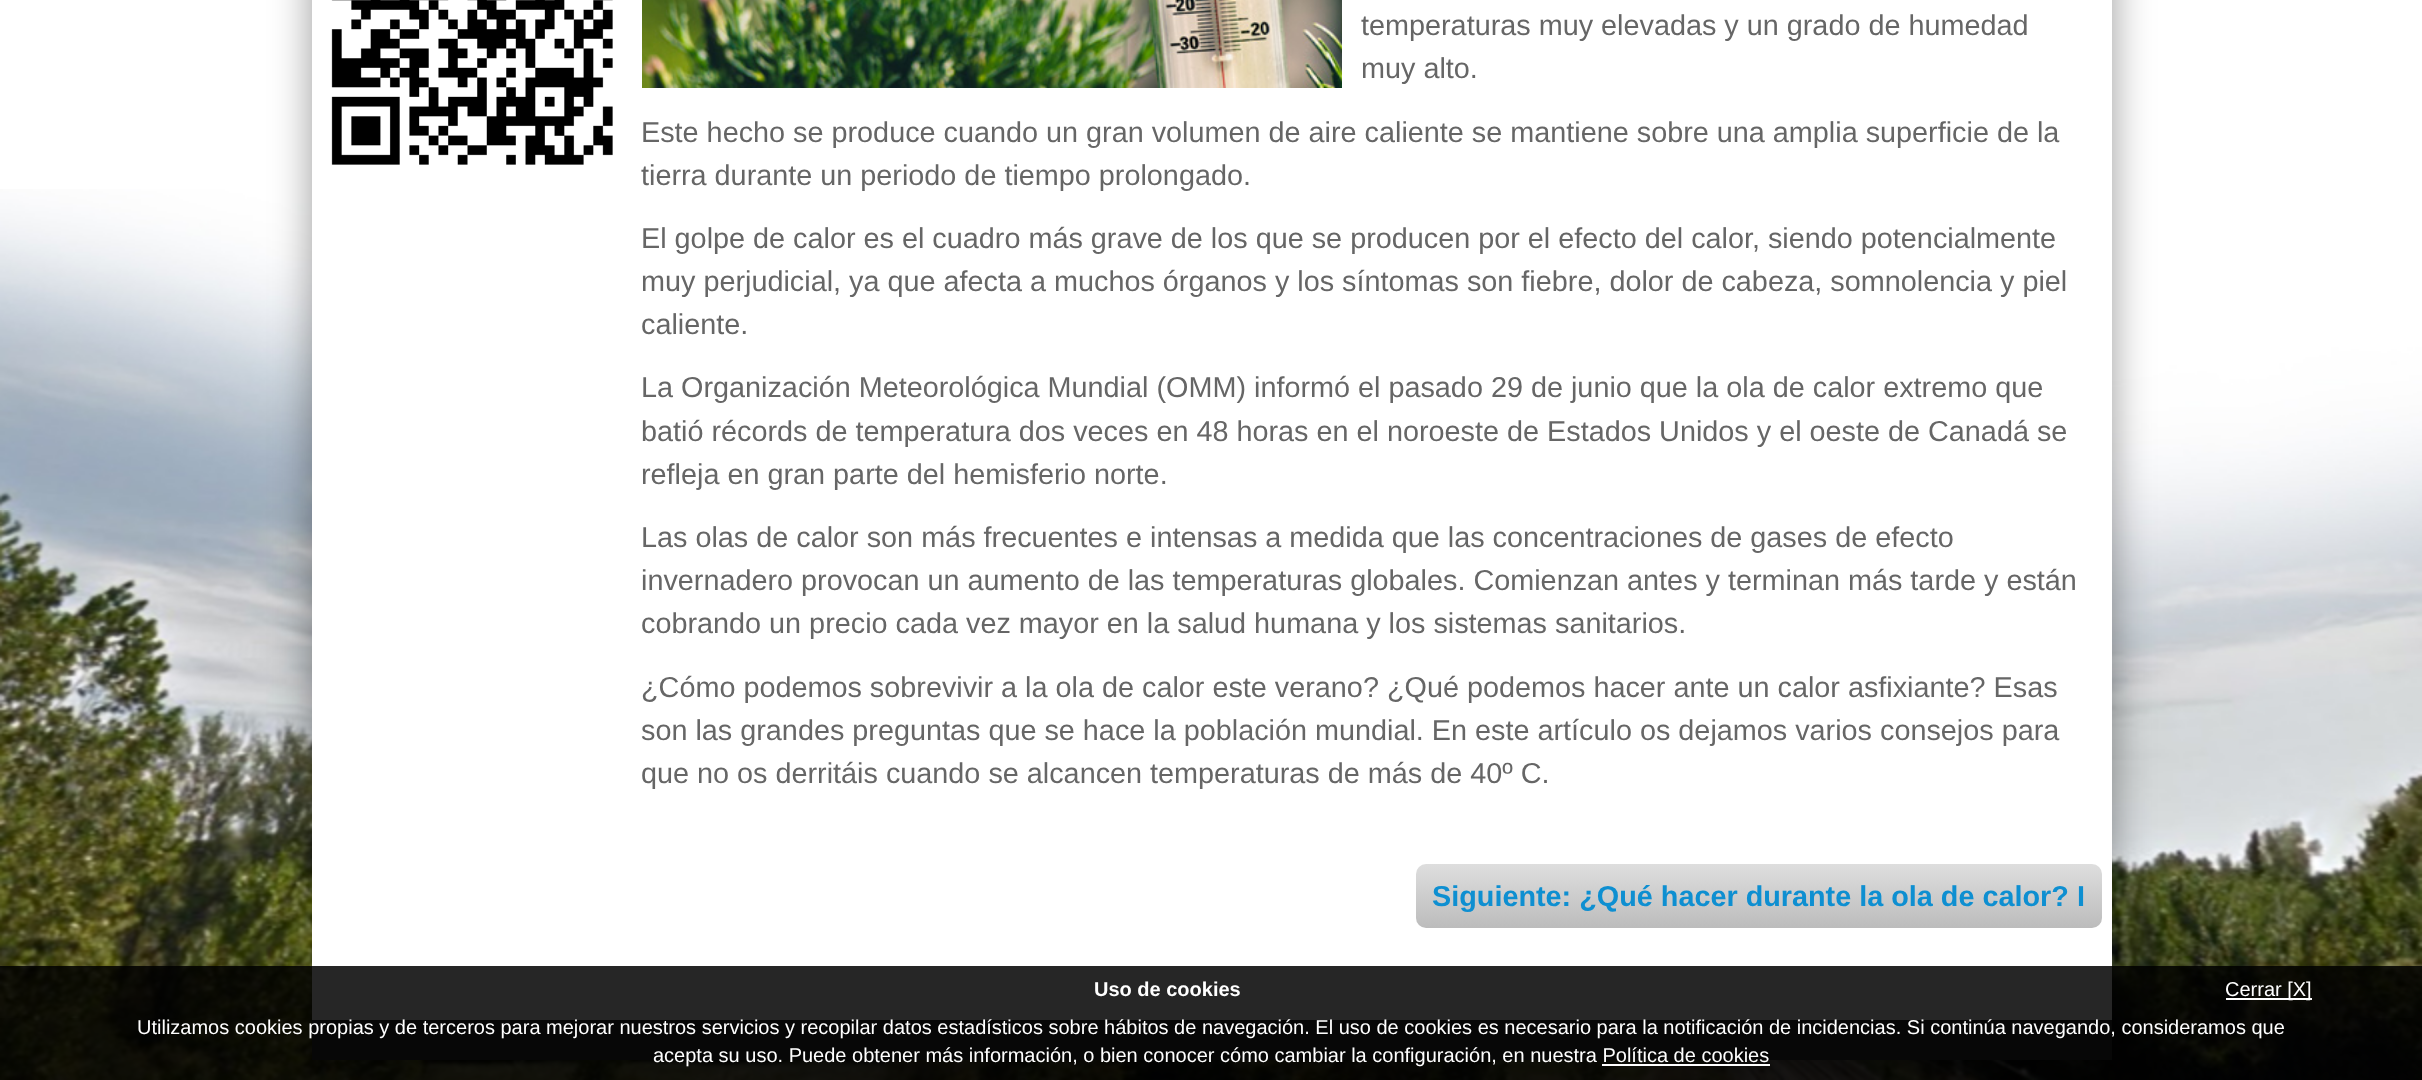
(async () => {
  const canvas = document.querySelector("canvas");
  canvas.width = 2422;
  canvas.height = 1080;
  const ctx = canvas.getContext("2d");
  ctx.miterLimit = 4;
  ctx.fontKerning = "normal";
  async function loadImage(src) {
    const img = new Image();
    img.src = src;
    await img.decode();
    return img;
  }
  let gradient;

  ctx.fillStyle = "#ffffff";
  ctx.fillRect(0, 0, 2422, 1080);
  ctx.drawImage(await loadImage("img/1.png"), 0, 189, 2422, 891);
  ctx.fillStyle = "rgba(0, 0, 0, 0.4)";
  ctx.filter = "blur(20px)";
  ctx.beginPath();
  ctx.rect(312, -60, 1800, 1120);
  ctx.fill();
  ctx.filter = "none";
  ctx.fillStyle = "#ffffff";
  ctx.fillRect(312, 0, 1800, 1020);
  ctx.drawImage(await loadImage("img/2.png"), 331, 0, 282, 165);
  ctx.drawImage(await loadImage("img/3.png"), 642, 0, 700, 88);
  gradient = ctx.createLinearGradient(1759, 864, 1759, 928);
  gradient.addColorStop(0, "#dedede");
  gradient.addColorStop(1, "#bcbcbc");
  ctx.fillStyle = gradient;
  ctx.beginPath();
  ctx.roundRect(1416, 864, 686, 64, 10);
  ctx.fill();
  for (const [x, y, w, h, color] of [
    [312, 1020, 1800, 40, "#343434"],
    [0, 966, 2422, 114, "rgba(0, 0, 0, 0.85)"],
    [2226, 998, 86, 2, "#ffffff"],
    [1602, 1064, 168, 2, "#ffffff"],
  ]) {
    ctx.fillStyle = color;
    ctx.fillRect(x, y, w, h);
  }
  ctx.font = "28.8px Liberation Sans";
  ctx.fillStyle = "#666666";
  for (const [text, x, y] of [
    ["temperaturas muy elevadas y un grado de humedad", 1361, 35],
    ["muy alto.", 1361, 78],
    ["Este hecho se produce cuando un gran volumen de aire caliente se mantiene sobre una amplia superficie de la", 641, 142],
    ["tierra durante un periodo de tiempo prolongado.", 641, 185],
    ["El golpe de calor es el cuadro más grave de los que se producen por el efecto del calor, siendo potencialmente", 641, 248],
    ["muy perjudicial, ya que afecta a muchos órganos y los síntomas son fiebre, dolor de cabeza, somnolencia y piel", 641, 291],
    ["caliente.", 641, 334],
    ["La Organización Meteorológica Mundial (OMM) informó el pasado 29 de junio que la ola de calor extremo que", 641, 397],
    ["batió récords de temperatura dos veces en 48 horas en el noroeste de Estados Unidos y el oeste de Canadá se", 641, 441],
    ["refleja en gran parte del hemisferio norte.", 641, 484],
    ["Las olas de calor son más frecuentes e intensas a medida que las concentraciones de gases de efecto", 641, 547],
    ["invernadero provocan un aumento de las temperaturas globales. Comienzan antes y terminan más tarde y están", 641, 590],
    ["cobrando un precio cada vez mayor en la salud humana y los sistemas sanitarios.", 641, 633],
    ["¿Cómo podemos sobrevivir a la ola de calor este verano? ¿Qué podemos hacer ante un calor asfixiante? Esas", 641, 697],
    ["son las grandes preguntas que se hace la población mundial. En este artículo os dejamos varios consejos para", 641, 740],
    ["que no os derritáis cuando se alcancen temperaturas de más de 40º C.", 641, 783],
  ]) {
    ctx.fillText(text, x, y);
  }
  ctx.font = "bold 28.8px Liberation Sans";
  ctx.fillStyle = "#0e8fd1";
  ctx.fillText("Siguiente: ¿Qué hacer durante la ola de calor? I", 1432, 906);
  ctx.font = "bold 20px Liberation Sans";
  ctx.fillStyle = "#ffffff";
  ctx.fillText("Uso de cookies", 1094, 996);
  ctx.font = "20px Liberation Sans";
  for (const [text, x, y] of [
    ["Cerrar [X]", 2225, 996],
    ["Utilizamos cookies propias y de terceros para mejorar nuestros servicios y recopilar datos estadísticos sobre hábitos de navegación. El uso de cookies es necesario para la notificación de incidencias. Si continúa navegando, consideramos que", 137, 1034],
    ["acepta su uso. Puede obtener más información, o bien conocer cómo cambiar la configuración, en nuestra Política de cookies", 653, 1062],
  ]) {
    ctx.fillText(text, x, y);
  }
})();
